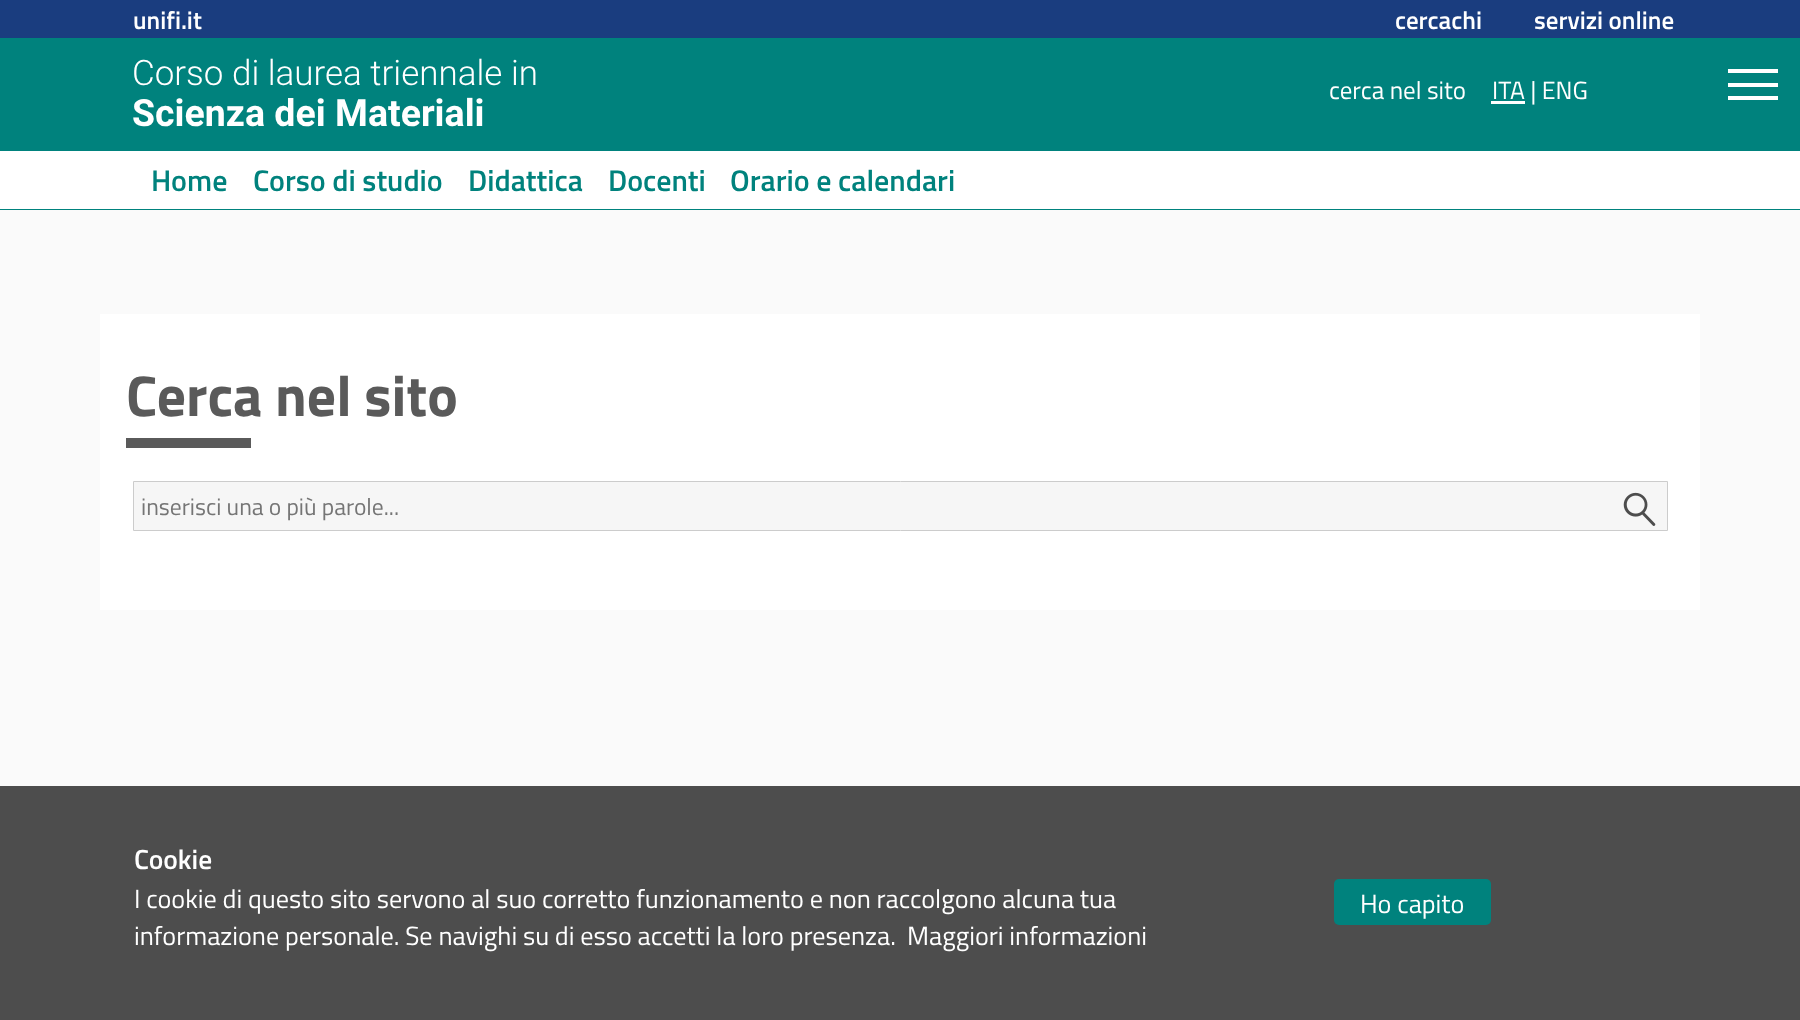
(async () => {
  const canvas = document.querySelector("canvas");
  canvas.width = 1800;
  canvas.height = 1020;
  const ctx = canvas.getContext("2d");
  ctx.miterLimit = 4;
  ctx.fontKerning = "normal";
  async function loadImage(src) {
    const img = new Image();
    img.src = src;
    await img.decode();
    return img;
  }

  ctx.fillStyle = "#fafafa";
  ctx.fillRect(0, 0, 1800, 1020);
  for (const [x, y, w, h, color] of [
    [0, 0, 1800, 38, "#1a3d7f"],
    [0, 38, 1800, 113, "#00827d"],
    [1491, 101, 34, 3, "#ffffff"],
    [0, 151, 1800, 58, "#ffffff"],
    [0, 209, 1800, 1, "#00827d"],
    [100, 314, 1600, 296, "#ffffff"],
    [126, 438, 125, 10, "#5a5a5a"],
  ]) {
    ctx.fillStyle = color;
    ctx.fillRect(x, y, w, h);
  }
  ctx.fillStyle = "#f6f6f6";
  ctx.beginPath();
  ctx.rect(133.5, 481.5, 1534, 49);
  ctx.fill();
  ctx.strokeStyle = "#cccccc";
  ctx.stroke();
  ctx.drawImage(await loadImage("img/1.png"), 1623, 492, 33, 34);
  ctx.fillStyle = "#4d4d4d";
  ctx.fillRect(0, 786, 1800, 234);
  ctx.fillStyle = "#00827d";
  ctx.beginPath();
  ctx.roundRect(1334, 879, 157, 46, 5);
  ctx.fill();
  for (const [x, y, w, h, color] of [
    [1728, 69, 50, 4, "#ffffff"],
    [1728, 83, 50, 4, "#ffffff"],
    [1728, 96, 50, 4, "#ffffff"],
  ]) {
    ctx.fillStyle = color;
    ctx.fillRect(x, y, w, h);
  }
  ctx.font = "600 25px Titillium Web";
  for (const [text, x, y] of [
    ["unifi.it", 133, 29],
    ["cercachi", 1395, 29],
    ["servizi online", 1534, 29],
  ]) {
    ctx.fillText(text, x, y);
  }
  ctx.font = "300 35px Roboto";
  ctx.fillText("Corso di laurea triennale in", 132, 85);
  ctx.font = "bold 37.5px Roboto";
  ctx.fillText("Scienza dei Materiali", 132, 126);
  ctx.font = "25px Titillium Web";
  ctx.fillText("cerca nel sito", 1329, 99);
  ctx.fillText("ITA | ENG", 1492, 99);
  ctx.font = "600 30px Titillium Web";
  ctx.fillStyle = "#00827d";
  for (const [text, x, y] of [
    ["Home", 151, 191],
    ["Corso di studio", 253, 191],
    ["Didattica", 468, 191],
    ["Docenti", 608, 191],
    ["Orario e calendari", 730, 191],
  ]) {
    ctx.fillText(text, x, y);
  }
  ctx.font = "bold 57.5px Titillium Web";
  ctx.fillStyle = "#5a5a5a";
  ctx.fillText("Cerca nel sito", 126, 416);
  ctx.font = "23.6px Titillium Web";
  ctx.fillStyle = "#757575";
  ctx.fillText("inserisci una o più parole...", 141, 515);
  ctx.font = "600 27.5px Titillium Web";
  ctx.fillStyle = "#ffffff";
  ctx.fillText("Cookie", 134, 869);
  ctx.font = "26.25px Titillium Web";
  for (const [text, x, y] of [
    ["I cookie di questo sito servono al suo corretto funzionamento e non raccolgono alcuna tua", 134, 908],
    ["informazione personale. Se navighi su di esso accetti la loro presenza.", 134, 945],
    ["Maggiori informazioni", 907, 945],
    ["Ho capito", 1360, 913],
  ]) {
    ctx.fillText(text, x, y);
  }
})();
